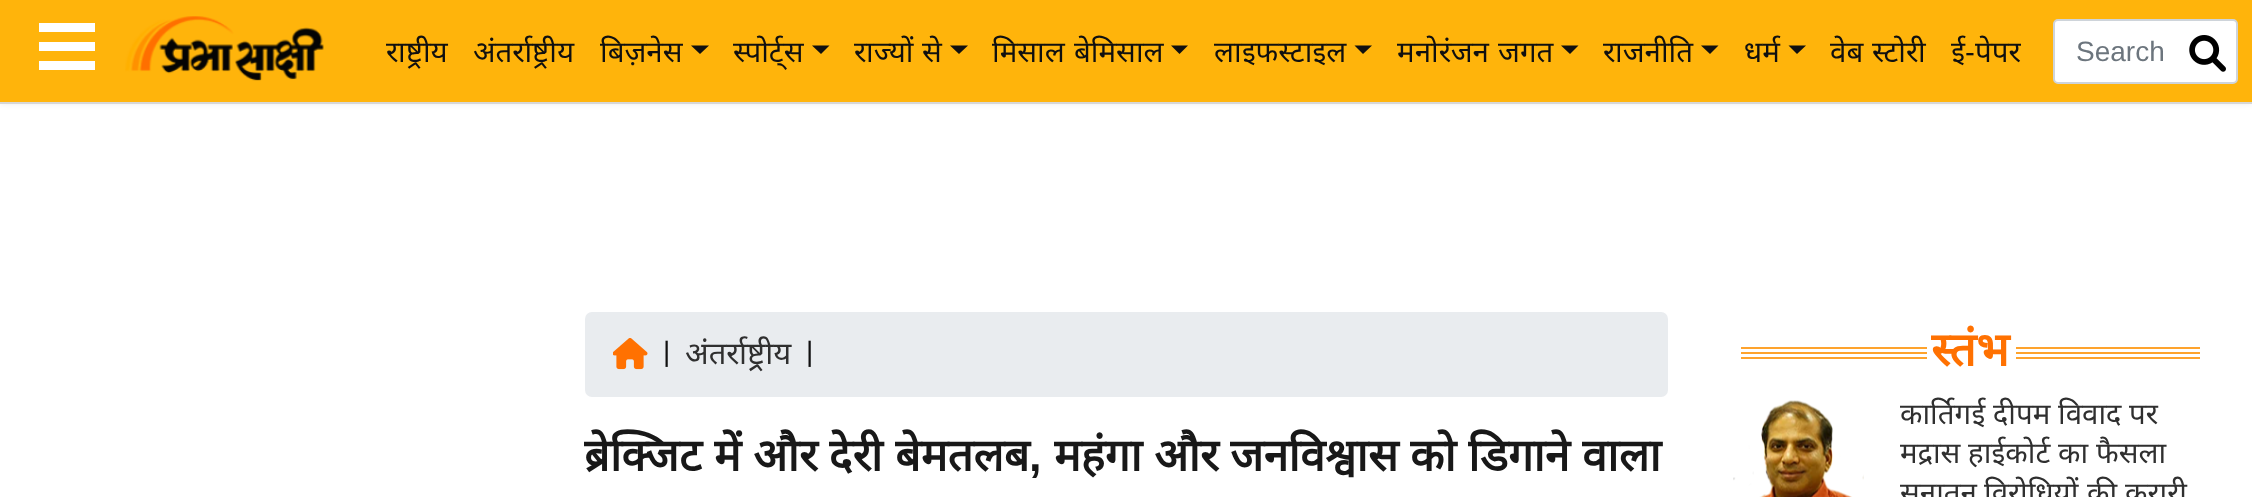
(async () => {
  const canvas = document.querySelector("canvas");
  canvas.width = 2252;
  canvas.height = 497;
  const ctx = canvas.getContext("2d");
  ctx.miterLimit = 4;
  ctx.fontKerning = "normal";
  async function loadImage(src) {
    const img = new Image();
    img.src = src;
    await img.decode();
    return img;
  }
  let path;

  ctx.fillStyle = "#ffffff";
  ctx.fillRect(0, 0, 2252, 497);
  ctx.fillStyle = "rgba(0, 0, 0, 0.1)";
  ctx.filter = "blur(3.5px)";
  ctx.beginPath();
  ctx.rect(0, 0, 2252, 103);
  ctx.fill();
  ctx.filter = "none";
  for (const [x, y, w, h, color] of [
    [0, 0, 2252, 102, "#ffb40b"],
    [0, 102, 2252, 2, "#d6d6d6"],
    [39, 23, 56, 9, "#ffffff"],
    [39, 42, 56, 9, "#ffffff"],
    [39, 61, 56, 9, "#ffffff"],
  ]) {
    ctx.fillStyle = color;
    ctx.fillRect(x, y, w, h);
  }
  ctx.drawImage(await loadImage("img/1.png"), 125, 16, 199, 65);
  ctx.fillStyle = "#101010";
  path = new Path2D("M691 45.5H709L700 54Z");
  ctx.fill(path);
  path = new Path2D("M812 45.5H829.5L821 54Z");
  ctx.fill(path);
  path = new Path2D("M950 45.5H968L959 54Z");
  ctx.fill(path);
  path = new Path2D("M1171 45.5H1188L1179.5 54Z");
  ctx.fill(path);
  path = new Path2D("M1354.5 45.5H1372L1363 54Z");
  ctx.fill(path);
  path = new Path2D("M1561 45.5H1578.5L1570 54Z");
  ctx.fill(path);
  path = new Path2D("M1701 45.5H1718.5L1710 54Z");
  ctx.fill(path);
  path = new Path2D("M1788.5 45.5H1806L1797 54Z");
  ctx.fill(path);
  ctx.fillStyle = "#ffffff";
  ctx.beginPath();
  ctx.roundRect(2054, 20, 183, 63, 4);
  ctx.fill();
  ctx.strokeStyle = "#ced4da";
  ctx.lineWidth = 2;
  ctx.stroke();
  ctx.drawImage(await loadImage("img/2.png"), 2189, 35, 37, 37);
  ctx.fillStyle = "#e9ecef";
  ctx.beginPath();
  ctx.roundRect(585, 312, 1083, 85, 7);
  ctx.fill();
  ctx.drawImage(await loadImage("img/3.png"), 613, 338, 35, 32);
  for (const [x, y, w, h, color] of [
    [1741, 352, 459, 2, "#fea32d"],
    [1741, 347, 459, 2, "#fea32d"],
    [1741, 357, 459, 2, "#fea32d"],
    [1927, 347, 89, 12, "#ffffff"],
  ]) {
    ctx.fillStyle = color;
    ctx.fillRect(x, y, w, h);
  }
  ctx.drawImage(await loadImage("img/4.png"), 1733, 400, 131, 97);
  ctx.font = "29.5px Noto Sans";
  ctx.fillStyle = "#101010";
  for (const [text, x, y] of [
    ["राष्ट्रीय", 386, 62],
    ["अंतर्राष्ट्रीय", 473, 62],
    ["बिज़नेस", 600, 62],
    ["स्पोर्ट्स", 733, 62],
    ["राज्यों", 854, 62],
    ["से", 922, 62],
    ["मिसाल", 992, 62],
    ["बेमिसाल", 1074, 62],
    ["लाइफस्टाइल", 1214, 62],
    ["मनोरंजन", 1397, 62],
    ["जगत", 1498, 62],
    ["राजनीति", 1603, 62],
    ["धर्म", 1744, 62],
    ["वेब", 1830, 62],
    ["स्टोरी", 1872, 62],
    ["ई", 1951, 62],
  ]) {
    ctx.fillText(text, x, y);
  }
  ctx.font = "29.5px Liberation Sans";
  ctx.fillText("-", 1965, 62);
  ctx.font = "29.5px Noto Sans";
  ctx.fillText("पेपर", 1975, 62);
  ctx.font = "28px Liberation Sans";
  ctx.fillStyle = "#6c757d";
  ctx.fillText("Search", 2076, 61);
  ctx.fillStyle = "#101010";
  ctx.fillText("|", 663, 361);
  ctx.font = "31px Noto Sans";
  ctx.fillStyle = "#2f2f2f";
  ctx.fillText("अंतर्राष्ट्रीय", 685, 364);
  ctx.font = "28px Liberation Sans";
  ctx.fillStyle = "#101010";
  ctx.fillText("|", 806, 361);
  ctx.font = "bold 45px Noto Sans";
  ctx.fillStyle = "#181818";
  for (const [text, x, y] of [
    ["ब्रेक्जिट", 584, 471],
    ["में", 714, 471],
    ["और", 753, 471],
    ["देरी", 829, 471],
    ["बेमतलब", 895, 471],
  ]) {
    ctx.fillText(text, x, y);
  }
  ctx.font = "bold 45px Liberation Sans";
  ctx.fillText(",", 1029, 471);
  ctx.font = "bold 45px Noto Sans";
  for (const [text, x, y] of [
    ["महंगा", 1054, 471],
    ["और", 1154, 471],
    ["जनविश्वास", 1230, 471],
    ["को", 1410, 471],
    ["डिगाने", 1468, 471],
    ["वाला", 1582, 471],
  ]) {
    ctx.fillText(text, x, y);
  }
  ctx.font = "bold 47px Noto Sans";
  ctx.fillStyle = "#ff7101";
  ctx.fillText("स्तंभ", 1931, 366);
  ctx.font = "29.5px Noto Sans";
  ctx.fillStyle = "#2f2f2f";
  for (const [text, x, y] of [
    ["कार्तिगई", 1900, 424],
    ["दीपम", 1993, 424],
    ["विवाद", 2058, 424],
    ["पर", 2129, 424],
    ["मद्रास", 1900, 463],
    ["हाईकोर्ट", 1968, 463],
    ["का", 2058, 463],
    ["फैसला", 2096, 463],
    ["सनातन", 1900, 503],
    ["विरोधियों", 1984, 503],
    ["की", 2087, 503],
    ["करारी", 2125, 503],
  ]) {
    ctx.fillText(text, x, y);
  }
})();
